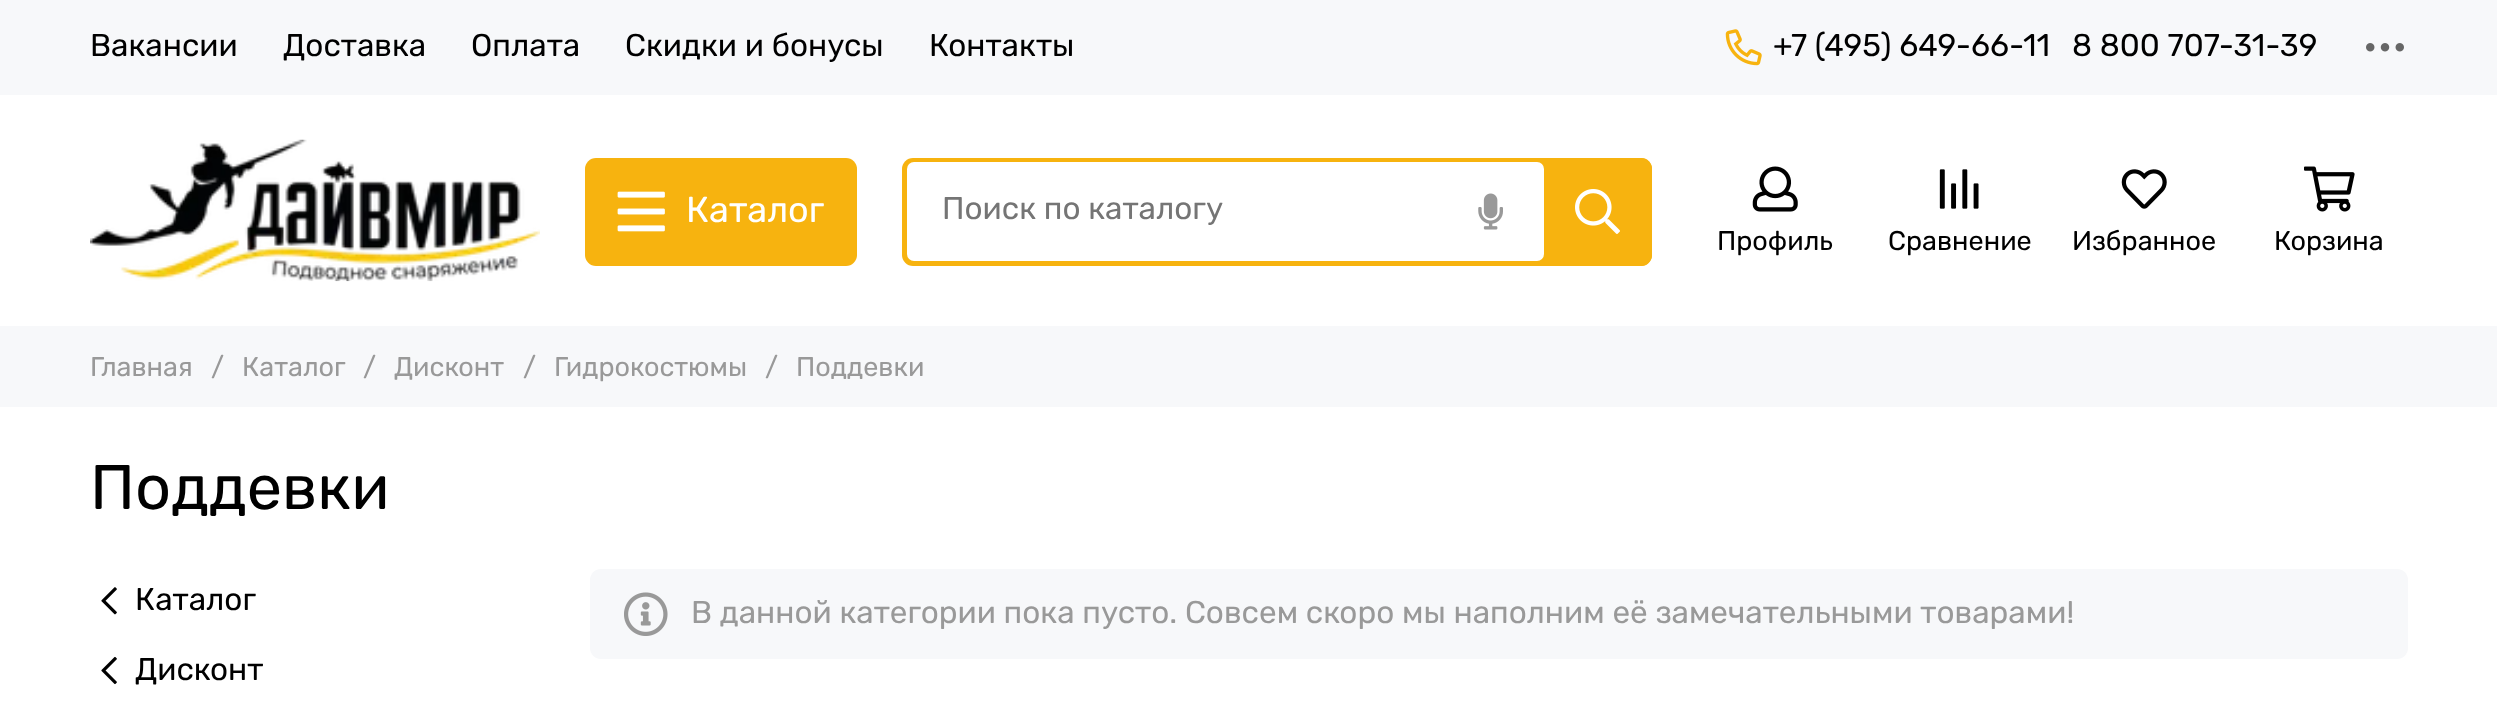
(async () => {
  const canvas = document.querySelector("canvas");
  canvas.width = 2497;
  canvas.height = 719;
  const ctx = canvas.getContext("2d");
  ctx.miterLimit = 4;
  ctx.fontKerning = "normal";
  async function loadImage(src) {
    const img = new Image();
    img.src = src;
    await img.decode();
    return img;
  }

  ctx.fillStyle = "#ffffff";
  ctx.fillRect(0, 0, 2497, 719);
  ctx.fillStyle = "#f7f8fa";
  ctx.fillRect(0, 0, 2497, 95);
  ctx.drawImage(await loadImage("img/1.png"), 1725, 29, 37, 37);
  ctx.drawImage(await loadImage("img/2.png"), 2366, 43, 38, 9);
  ctx.drawImage(await loadImage("img/3.png"), 90, 139, 450, 143);
  ctx.fillStyle = "#f7b30f";
  ctx.beginPath();
  ctx.roundRect(585, 158, 272, 108, 11);
  ctx.fill();
  ctx.drawImage(await loadImage("img/4.png"), 617, 191, 48, 41);
  ctx.beginPath();
  ctx.roundRect(902, 158, 750, 108, 11);
  ctx.fill();
  ctx.fillStyle = "#ffffff";
  ctx.beginPath();
  ctx.roundRect(907, 162, 637, 99, 7);
  ctx.fill();
  ctx.drawImage(await loadImage("img/5.png"), 1478, 193, 25, 37);
  ctx.fillStyle = "#f7b30f";
  ctx.beginPath();
  ctx.roundRect(1544, 158, 108, 108, [0, 11, 11, 0]);
  ctx.fill();
  ctx.drawImage(await loadImage("img/6.png"), 1575, 189, 45, 45);
  ctx.drawImage(await loadImage("img/7.png"), 1752, 166, 46, 46);
  ctx.drawImage(await loadImage("img/8.png"), 1939, 169, 40, 40);
  ctx.drawImage(await loadImage("img/9.png"), 2121, 169, 46, 40);
  ctx.drawImage(await loadImage("img/10.png"), 2304, 166, 51, 46);
  ctx.fillStyle = "#f7f8fa";
  ctx.fillRect(0, 326, 2497, 81);
  ctx.drawImage(await loadImage("img/11.png"), 101, 587, 16, 28);
  ctx.drawImage(await loadImage("img/12.png"), 101, 656, 16, 29);
  ctx.beginPath();
  ctx.roundRect(590, 569, 1818, 90, 11);
  ctx.fill();
  ctx.drawImage(await loadImage("img/13.png"), 624, 592, 44, 44);
  ctx.font = "31.5px Rubik";
  ctx.fillStyle = "#000000";
  for (const [text, x, y] of [
    ["Вакансии", 90, 56],
    ["Доставка", 283, 56],
    ["Оплата", 471, 56],
    ["Скидки и бонусы", 625, 56],
    ["Контакты", 929, 56],
    ["+7 (495) 649-66-11", 1773, 56],
    ["8 800 707-31-39", 2072, 56],
  ]) {
    ctx.fillText(text, x, y);
  }
  ctx.font = "36px Rubik";
  ctx.fillStyle = "#ffffff";
  ctx.fillText("Каталог", 686, 222);
  ctx.font = "31.5px Rubik";
  ctx.fillStyle = "#757575";
  ctx.fillText("Поиск по каталогу", 942, 219);
  ctx.font = "27px Rubik";
  ctx.fillStyle = "#000000";
  for (const [text, x, y] of [
    ["Профиль", 1717, 250],
    ["Сравнение", 1888, 250],
    ["Избранное", 2072, 250],
    ["Корзина", 2274, 250],
  ]) {
    ctx.fillText(text, x, y);
  }
  ctx.fillStyle = "#999999";
  for (const [text, x, y] of [
    ["Главная", 90, 376],
    ["/", 211, 376],
    ["Каталог", 242, 376],
    ["/", 363, 376],
    ["Дисконт", 394, 376],
    ["/", 523, 376],
    ["Гидрокостюмы", 554, 376],
    ["/", 765, 376],
    ["Поддевки", 796, 376],
  ]) {
    ctx.fillText(text, x, y);
  }
  ctx.font = "63px Rubik";
  ctx.fillStyle = "#000000";
  ctx.fillText("Поддевки", 90, 509);
  ctx.font = "31.5px Rubik";
  ctx.fillText("Каталог", 135, 610);
  ctx.fillText("Дисконт", 135, 680);
  ctx.fillStyle = "#999999";
  ctx.fillText("В данной категории пока пусто. Совсем скоро мы наполним её замечательными товарами!", 691, 623);
})();
